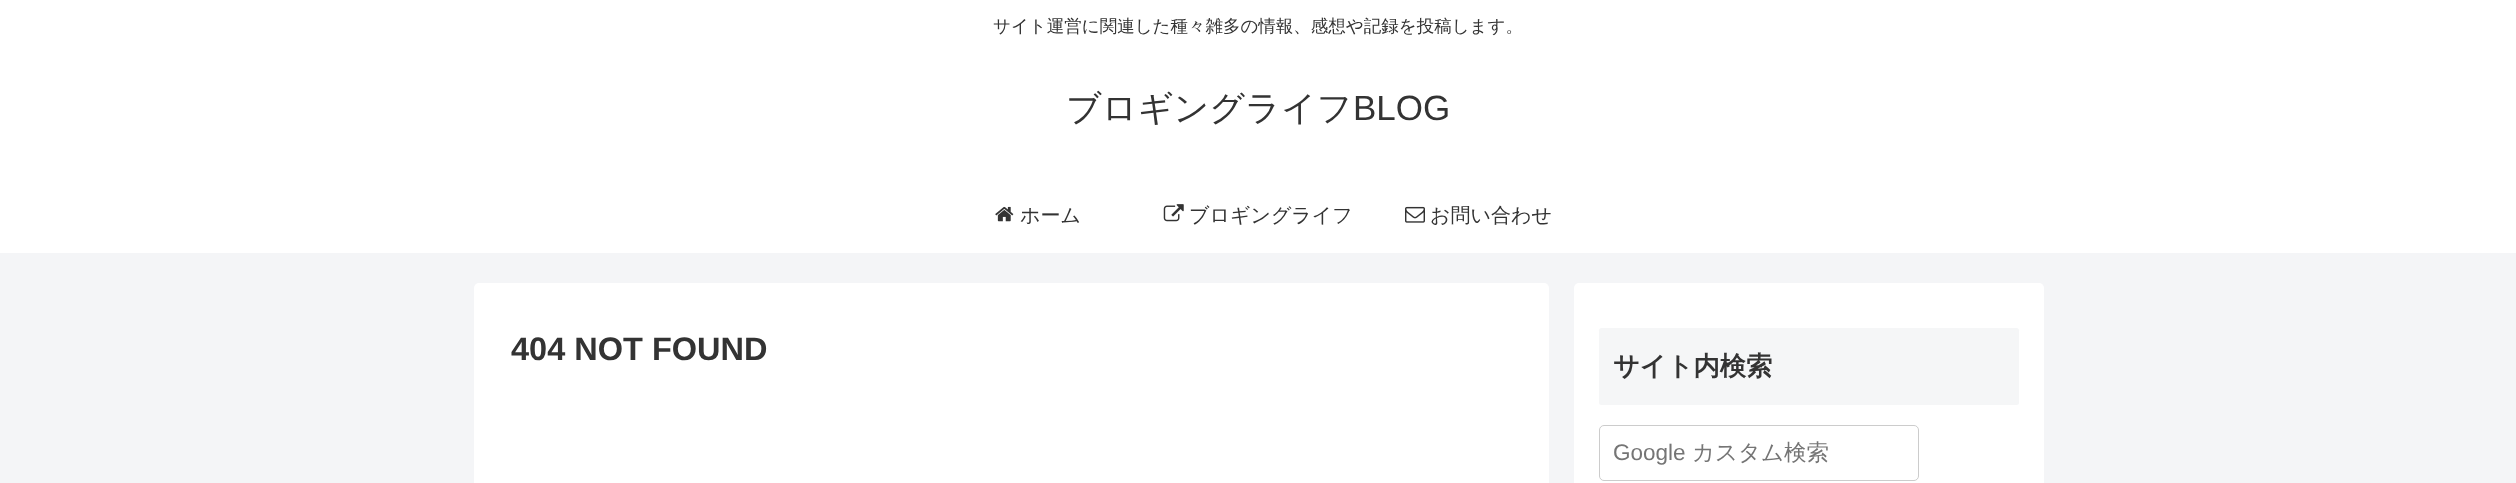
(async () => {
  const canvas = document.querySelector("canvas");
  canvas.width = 2516;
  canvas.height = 483;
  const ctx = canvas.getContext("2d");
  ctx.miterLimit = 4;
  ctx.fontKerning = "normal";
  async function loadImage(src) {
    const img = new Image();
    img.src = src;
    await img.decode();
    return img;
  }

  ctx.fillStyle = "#f4f5f7";
  ctx.fillRect(0, 0, 2516, 483);
  ctx.fillStyle = "#ffffff";
  ctx.fillRect(0, 0, 2516, 253);
  ctx.drawImage(await loadImage("img/1.png"), 995, 206, 19, 16);
  ctx.drawImage(await loadImage("img/2.png"), 1163, 204, 21, 18);
  ctx.drawImage(await loadImage("img/3.png"), 1405, 206, 20, 17);
  ctx.beginPath();
  ctx.roundRect(474, 283, 1075, 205, 5);
  ctx.fill();
  ctx.beginPath();
  ctx.roundRect(1574, 283, 470, 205, 5);
  ctx.fill();
  ctx.fillStyle = "#f5f6f7";
  ctx.beginPath();
  ctx.roundRect(1599, 328, 420, 77, 2.5);
  ctx.fill();
  ctx.beginPath();
  ctx.roundRect(1599.5, 425.5, 319, 55, 4.5);
  ctx.strokeStyle = "#cccccc";
  ctx.stroke();
  ctx.font = "500 17.5px WenQuanYi Zen Hei";
  ctx.fillStyle = "#333333";
  ctx.fillText("サイト運営に関連した種々雑多の情報、感想や記録を投稿します。", 993, 32);
  ctx.font = "500 35px WenQuanYi Zen Hei";
  ctx.fillText("ブロギングライフ", 1066, 120);
  ctx.font = "35px Liberation Sans";
  ctx.fillText("BLOG", 1353, 120);
  ctx.font = "500 20px WenQuanYi Zen Hei";
  for (const [text, x, y] of [
    ["ホーム", 1020, 222],
    ["ブロギングライフ", 1189, 222],
    ["お問い合わせ", 1430, 222],
  ]) {
    ctx.fillText(text, x, y);
  }
  ctx.font = "bold 32.5px Liberation Sans";
  ctx.fillText("404 NOT FOUND", 511, 360);
  ctx.font = "bold 26.25px WenQuanYi Zen Hei";
  ctx.fillText("サイト内検索", 1613, 375);
  ctx.font = "22.5px Liberation Sans";
  ctx.fillStyle = "#757575";
  ctx.fillText("Google", 1613, 460);
  ctx.font = "500 22.5px WenQuanYi Zen Hei";
  ctx.fillText("カスタム検索", 1692, 460);
})();
